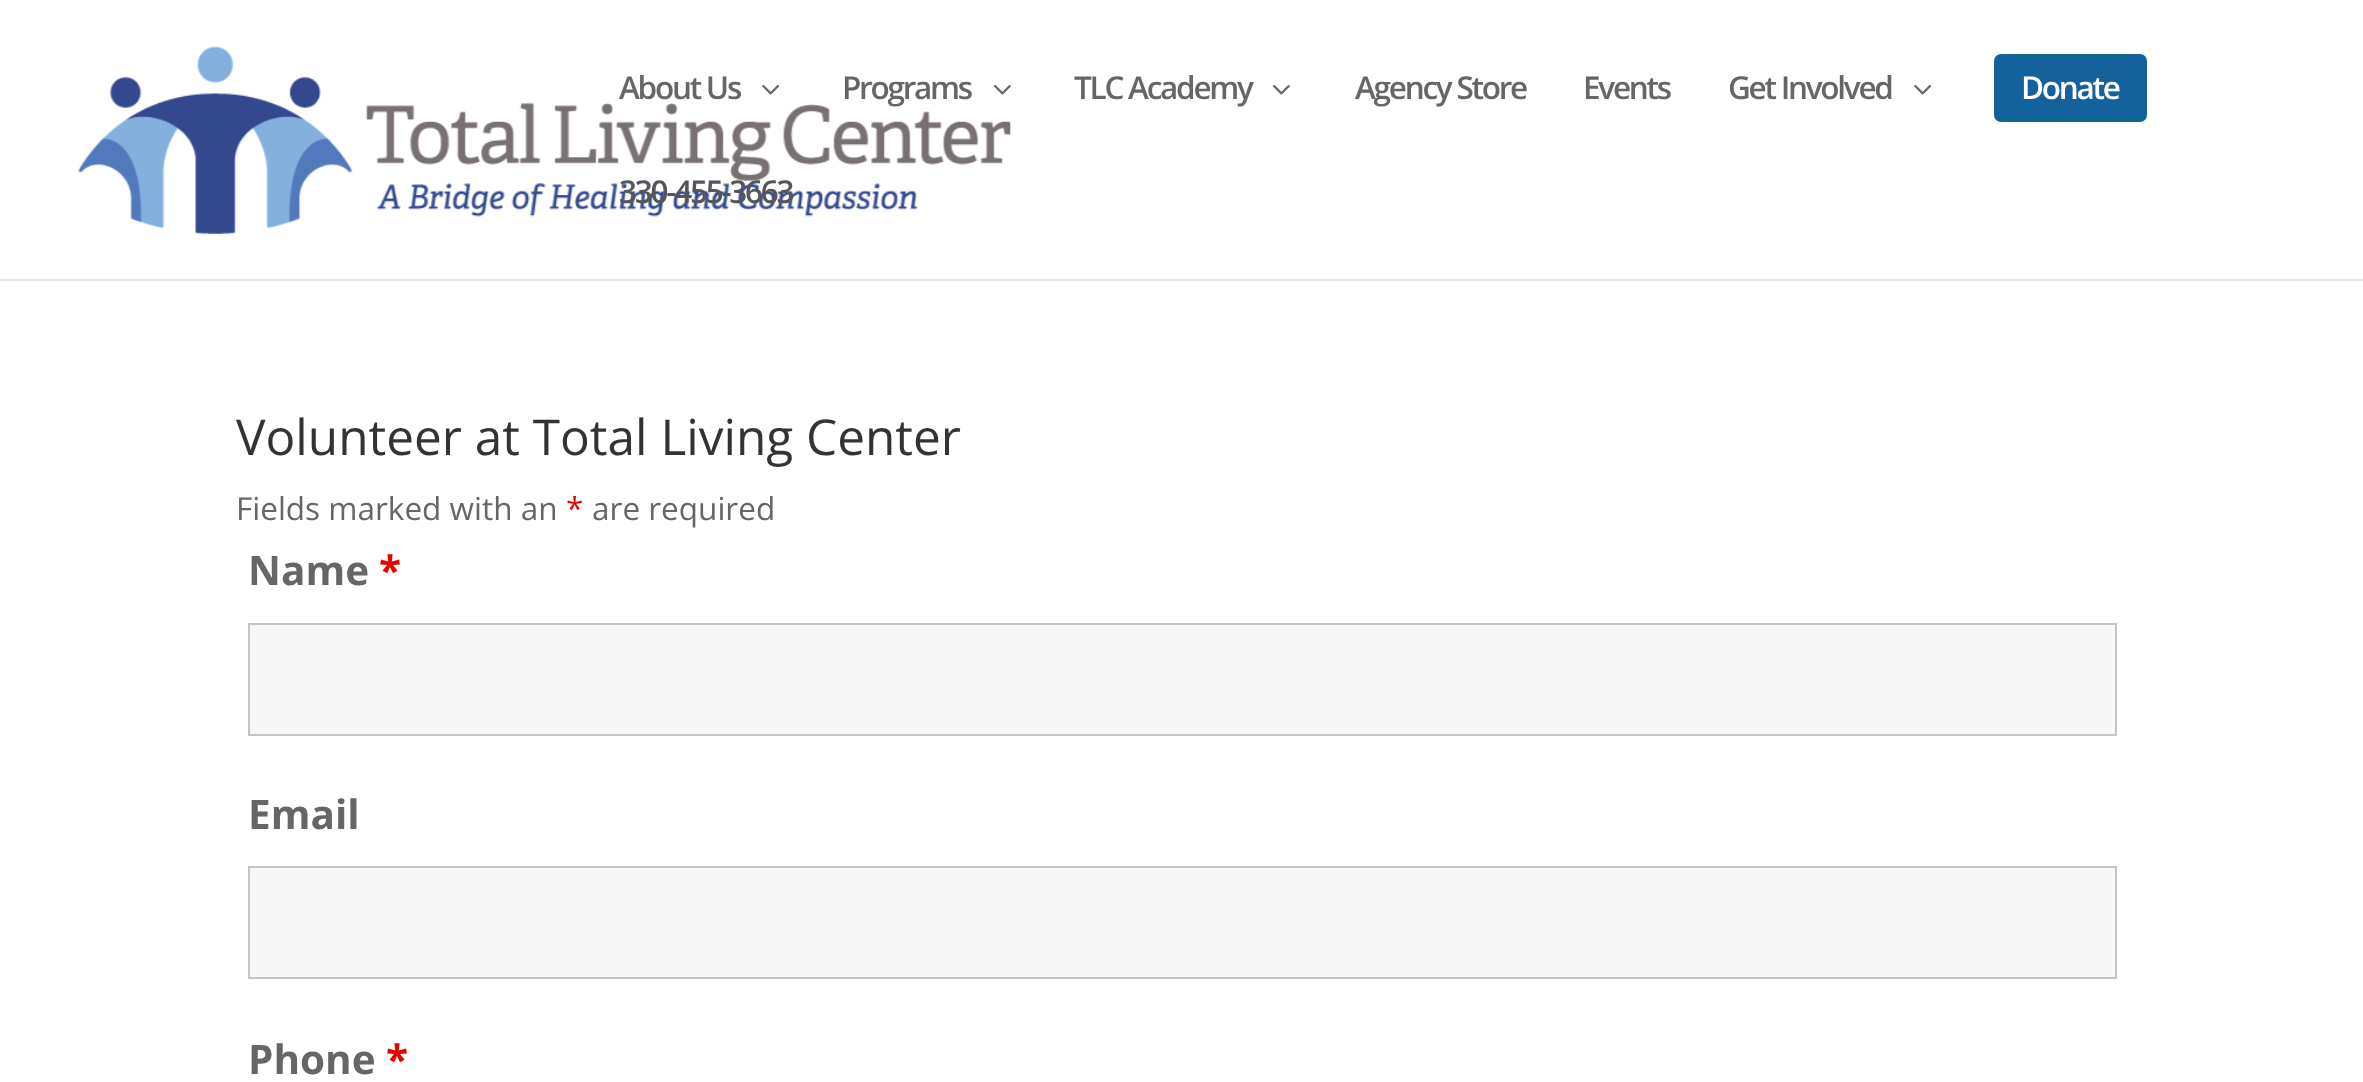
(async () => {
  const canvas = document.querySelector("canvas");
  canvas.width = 2363;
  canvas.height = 1082;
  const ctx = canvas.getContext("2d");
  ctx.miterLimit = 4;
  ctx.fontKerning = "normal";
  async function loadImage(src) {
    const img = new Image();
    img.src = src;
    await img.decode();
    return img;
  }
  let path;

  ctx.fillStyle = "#ffffff";
  ctx.fillRect(0, 0, 2363, 1082);
  ctx.fillStyle = "#e6e6e6";
  path = new Path2D("M0 279V281H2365V2V279Z");
  ctx.fill(path);
  ctx.drawImage(await loadImage("img/1.png"), 78, 46, 933, 188);
  ctx.drawImage(await loadImage("img/2.png"), 762, 85, 17, 10);
  ctx.drawImage(await loadImage("img/3.png"), 994, 85, 17, 10);
  ctx.drawImage(await loadImage("img/3.png"), 1273, 85, 17, 10);
  ctx.drawImage(await loadImage("img/2.png"), 1914, 85, 17, 10);
  ctx.fillStyle = "#14629b";
  ctx.beginPath();
  ctx.roundRect(1994, 54, 153, 68, 7);
  ctx.fill();
  ctx.fillStyle = "#f7f7f7";
  ctx.beginPath();
  ctx.rect(249, 624, 1867, 111);
  ctx.fill();
  ctx.strokeStyle = "#c4c4c4";
  ctx.lineWidth = 2;
  ctx.stroke();
  ctx.beginPath();
  ctx.rect(249, 867, 1867, 111);
  ctx.fill();
  ctx.stroke();
  ctx.letterSpacing = "-2.25px";
  ctx.font = "600 31.5px Open Sans";
  ctx.fillStyle = "#666666";
  for (const [text, x, y] of [
    ["About Us", 619, 99],
    ["Programs", 842, 99],
    ["TLC Academy", 1074, 99],
    ["Agency Store", 1355, 99],
    ["Events", 1583, 99],
    ["Get Involved", 1728, 99],
  ]) {
    ctx.fillText(text, x, y);
  }
  ctx.fillStyle = "#ffffff";
  ctx.fillText("Donate", 2021, 99);
  ctx.fillStyle = "#54565c";
  ctx.fillText("330-455-3663", 619, 203);
  ctx.letterSpacing = "0px";
  ctx.font = "49.5px Open Sans";
  ctx.fillStyle = "#333333";
  ctx.fillText("Volunteer at Total Living Center", 236, 455);
  ctx.font = "31.5px Open Sans";
  ctx.fillStyle = "#666666";
  ctx.fillText("Fields marked with an", 236, 520);
  ctx.fillStyle = "#e80000";
  ctx.fillText("*", 566, 520);
  ctx.fillStyle = "#666666";
  ctx.fillText("are required", 592, 520);
  ctx.font = "bold 40.5px Open Sans";
  ctx.fillText("Name", 248, 585);
  ctx.fillStyle = "#e80000";
  ctx.fillText("*", 379, 585);
  ctx.fillStyle = "#666666";
  ctx.fillText("Email", 248, 829);
  ctx.fillText("Phone", 248, 1074);
  ctx.fillStyle = "#e80000";
  ctx.fillText("*", 386, 1074);
})();
